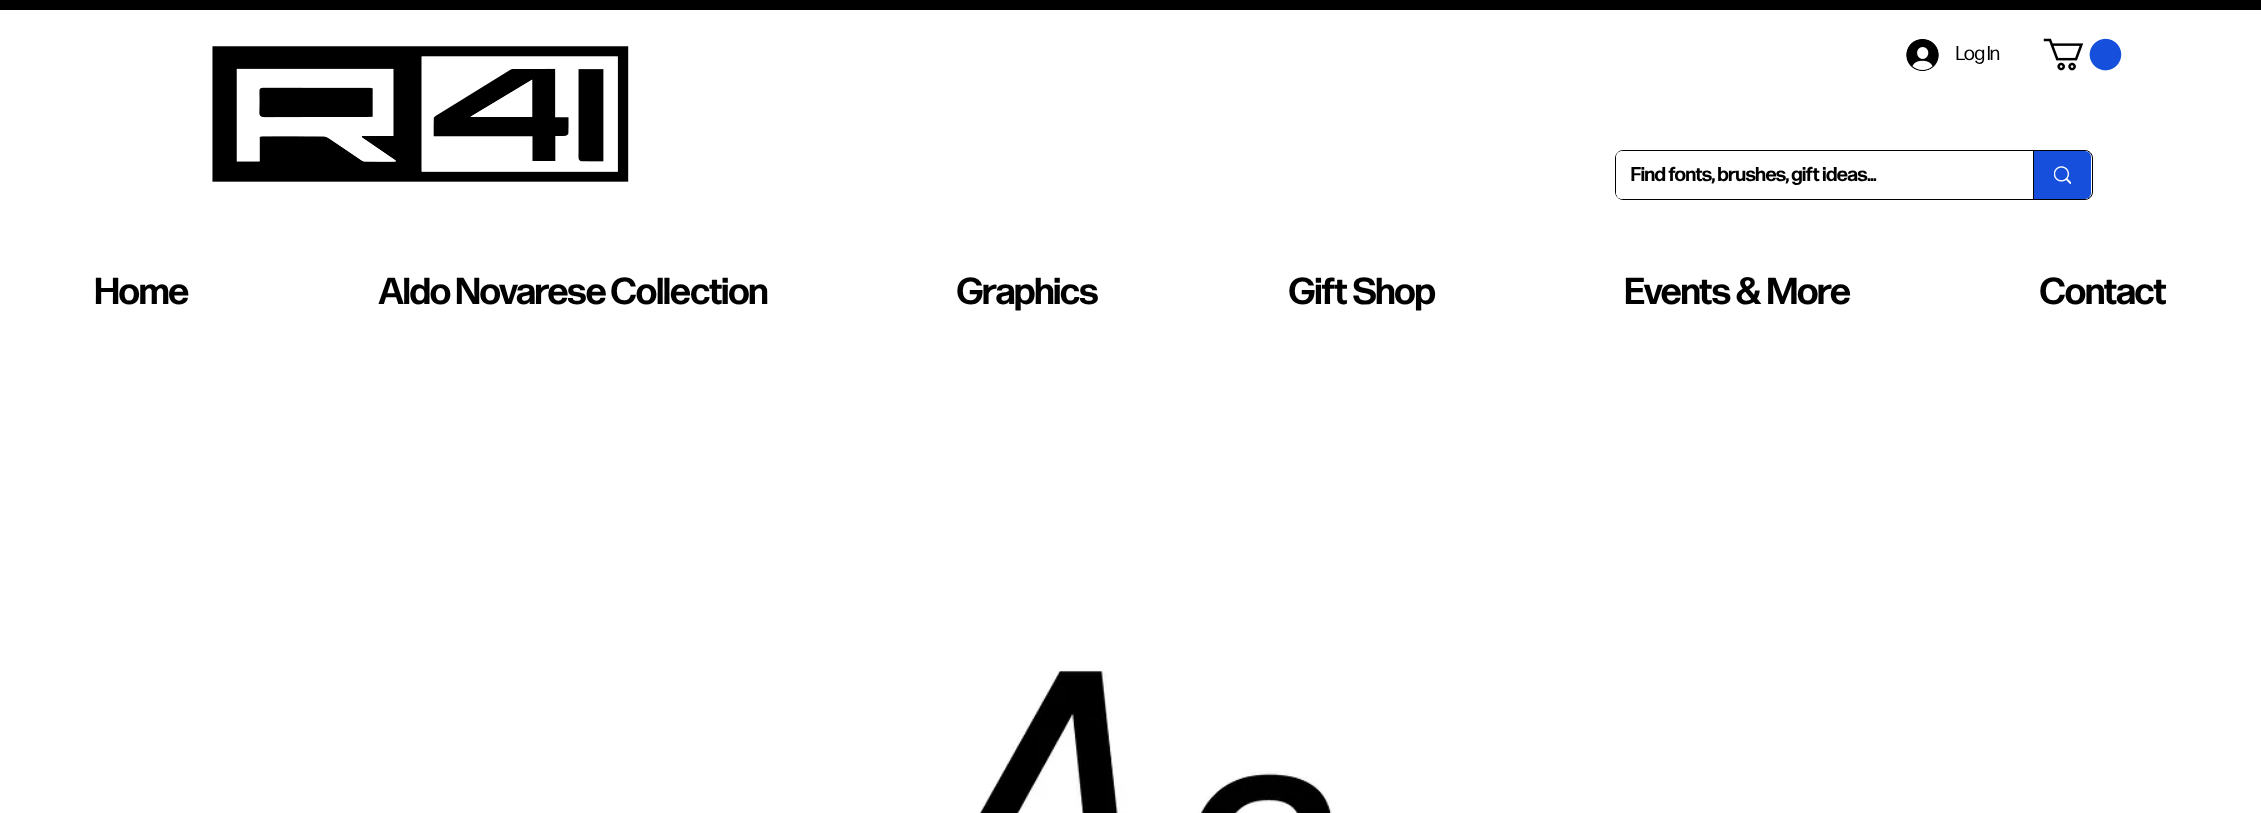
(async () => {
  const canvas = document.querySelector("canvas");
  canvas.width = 2261;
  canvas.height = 813;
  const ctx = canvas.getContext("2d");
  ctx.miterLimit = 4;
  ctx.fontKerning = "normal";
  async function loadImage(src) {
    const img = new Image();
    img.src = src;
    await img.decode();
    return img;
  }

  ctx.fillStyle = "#ffffff";
  ctx.fillRect(0, 0, 2261, 813);
  ctx.fillStyle = "#000000";
  ctx.fillRect(0, 0, 2261, 10);
  ctx.drawImage(await loadImage("img/1.png"), 212, 46, 417, 136);
  ctx.drawImage(await loadImage("img/2.png"), 1906, 39, 33, 32);
  ctx.drawImage(await loadImage("img/3.png"), 2043, 38, 79, 33);
  ctx.beginPath();
  ctx.roundRect(1615.5, 150.5, 477, 49, 7.5);
  ctx.strokeStyle = "#000000";
  ctx.stroke();
  ctx.fillStyle = "#ffffff";
  ctx.beginPath();
  ctx.roundRect(1616, 151, 475, 48, 6);
  ctx.fill();
  ctx.fillStyle = "#164fdb";
  ctx.beginPath();
  ctx.roundRect(2033, 151, 58, 48, [0, 6, 6, 0]);
  ctx.fill();
  ctx.fillStyle = "#000000";
  ctx.fillRect(2033, 151, 1, 48);
  ctx.drawImage(await loadImage("img/4.png"), 2054, 166, 17, 18);
  ctx.drawImage(await loadImage("img/5.png"), 978, 668, 354, 145);
  ctx.font = "20px 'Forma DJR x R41'";
  ctx.fillText("Log In", 1956, 60);
  ctx.font = "bold 20px 'Forma DJR x R41'";
  ctx.fillText("Find fonts, brushes, gift ideas…", 1631, 181);
  ctx.font = "bold 37.5px 'Forma DJR x R41'";
  for (const [text, x, y] of [
    ["Home", 95, 304],
    ["Aldo Novarese Collection", 379, 304],
    ["Graphics", 957, 304],
    ["Gift Shop", 1289, 304],
    ["Events & More", 1625, 304],
    ["Contact", 2040, 304],
  ]) {
    ctx.fillText(text, x, y);
  }
})();
